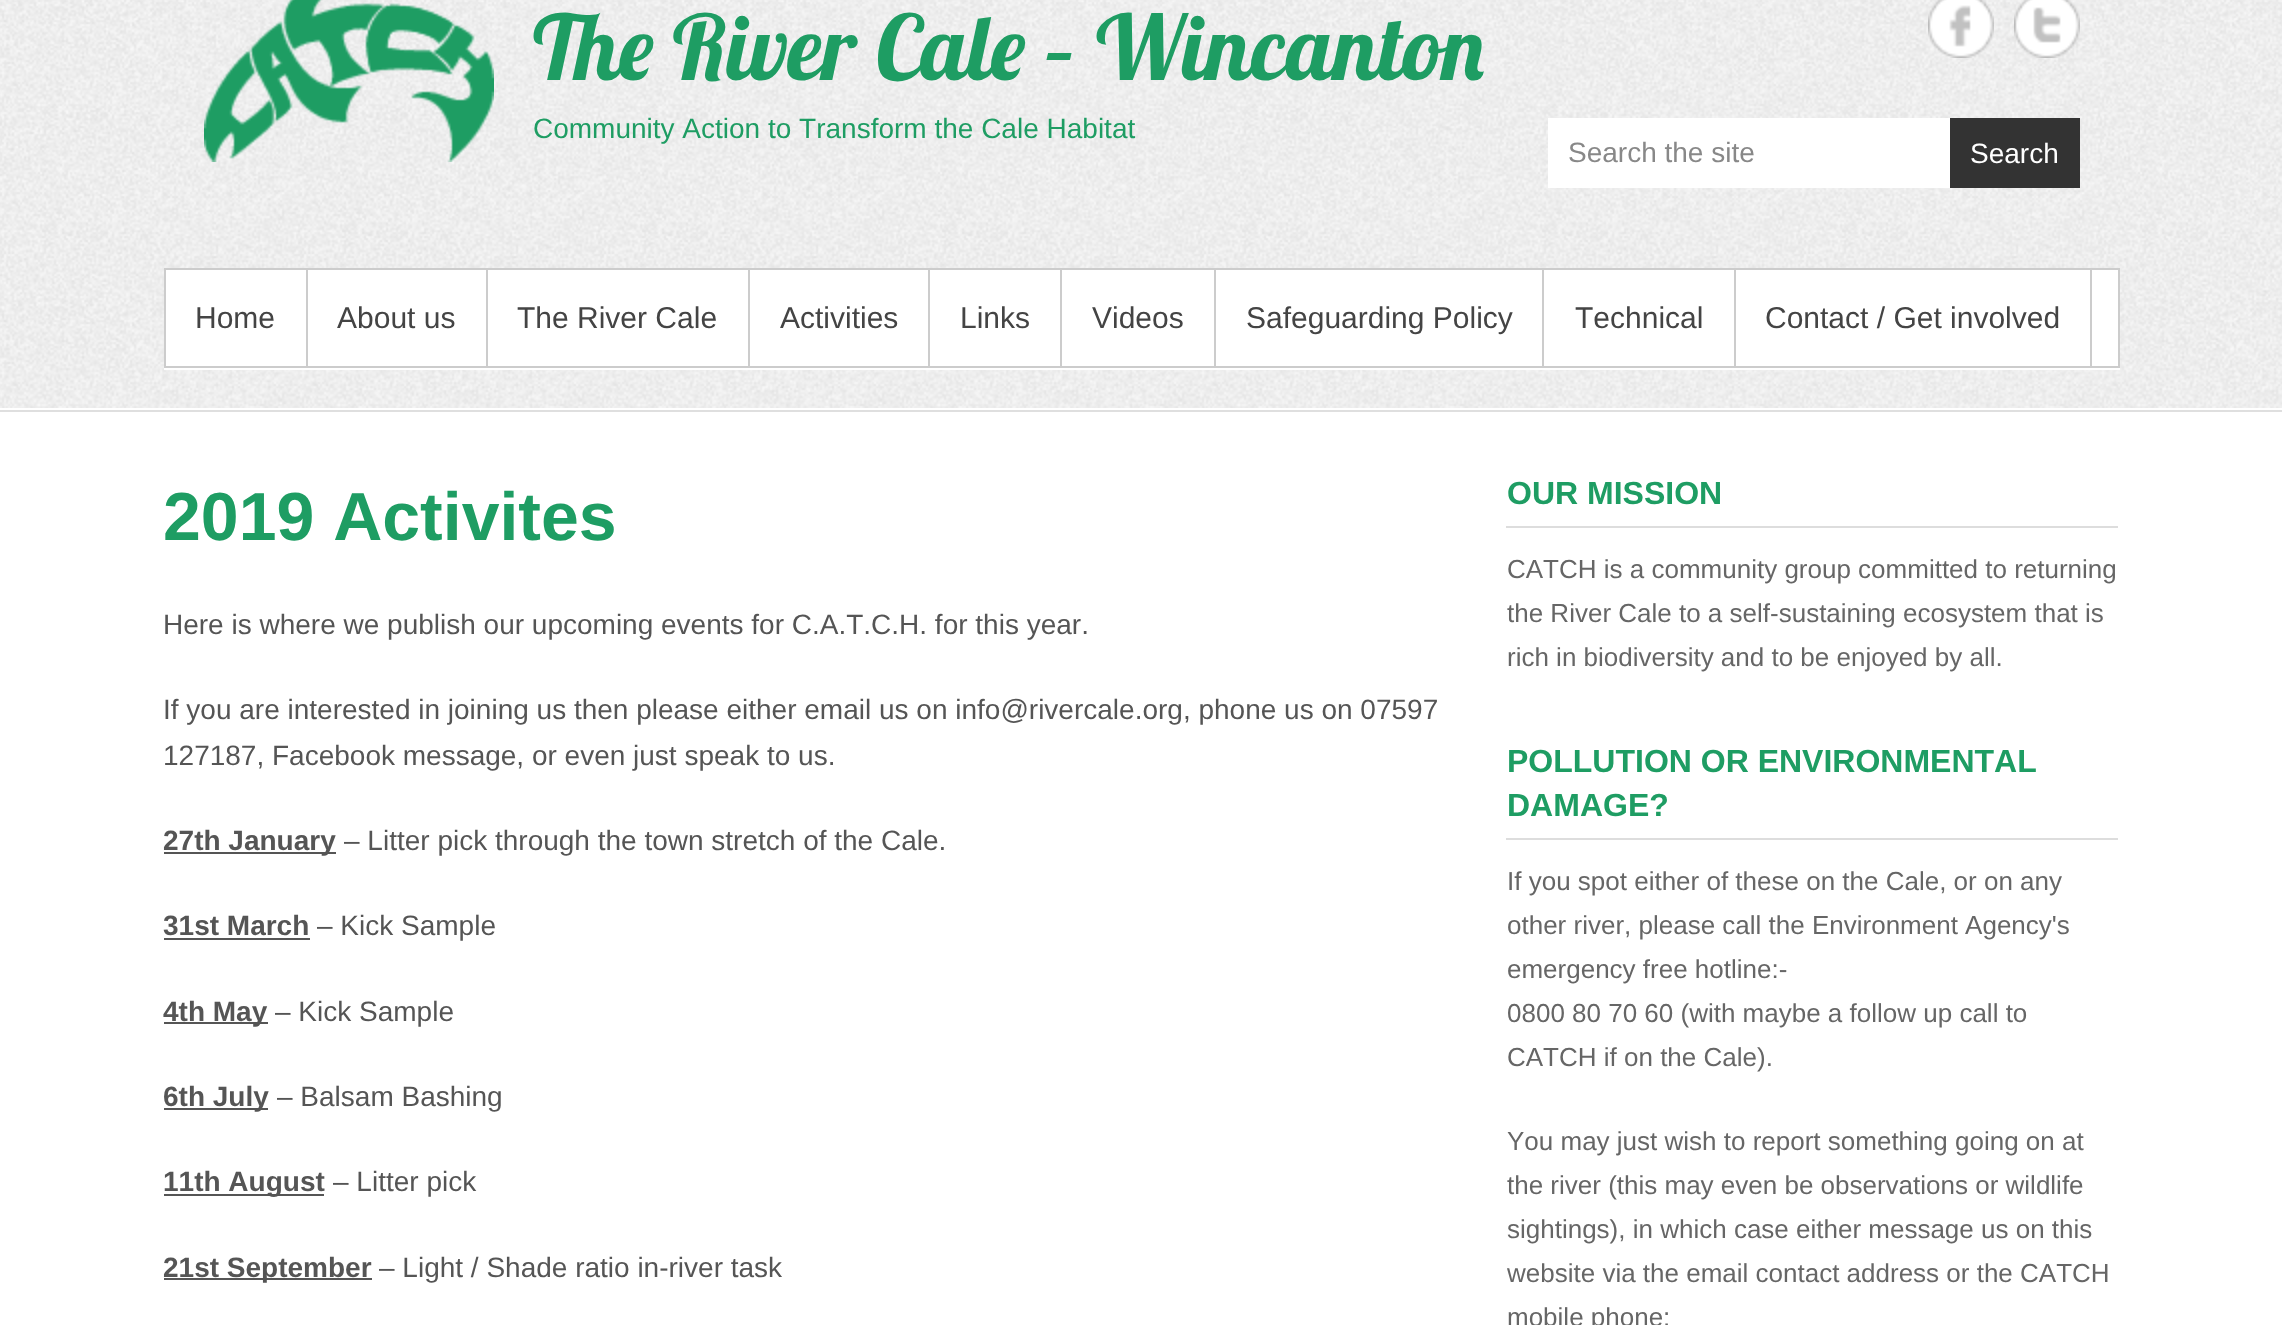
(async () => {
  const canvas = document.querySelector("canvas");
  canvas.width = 2282;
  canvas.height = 1325;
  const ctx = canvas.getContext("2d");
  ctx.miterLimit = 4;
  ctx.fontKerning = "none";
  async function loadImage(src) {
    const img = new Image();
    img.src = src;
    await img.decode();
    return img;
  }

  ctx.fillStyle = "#ffffff";
  ctx.fillRect(0, 0, 2282, 1325);
  ctx.drawImage(await loadImage("img/1.png"), 0, 0, 2282, 408);
  ctx.fillStyle = "#dfdfdf";
  ctx.fillRect(0, 410, 2282, 2);
  ctx.drawImage(await loadImage("img/2.png"), 204, 0, 290, 162);
  ctx.drawImage(await loadImage("img/3.png"), 1928, 0, 66, 58);
  ctx.drawImage(await loadImage("img/4.png"), 2014, 0, 66, 58);
  for (const [x, y, w, h, color] of [
    [1548, 118, 402, 70, "#ffffff"],
    [1950, 118, 130, 70, "#333333"],
    [164, 368, 1956, 2, "#ffffff"],
  ]) {
    ctx.fillStyle = color;
    ctx.fillRect(x, y, w, h);
  }
  ctx.beginPath();
  ctx.rect(165, 269, 1954, 98);
  ctx.fill();
  ctx.strokeStyle = "#cccccc";
  ctx.lineWidth = 2;
  ctx.stroke();
  for (const [x, y, w, h, color] of [
    [306, 270, 2, 98, "#cccccc"],
    [486, 270, 2, 98, "#cccccc"],
    [748, 270, 2, 98, "#cccccc"],
    [928, 270, 2, 98, "#cccccc"],
    [1060, 270, 2, 98, "#cccccc"],
    [1214, 270, 2, 98, "#cccccc"],
    [1542, 270, 2, 98, "#cccccc"],
    [1734, 270, 2, 98, "#cccccc"],
    [2090, 270, 2, 98, "#cccccc"],
    [164, 852, 172, 2, "#555555"],
    [164, 938, 146, 2, "#555555"],
    [164, 1022, 104, 2, "#555555"],
    [164, 1108, 104, 2, "#555555"],
    [164, 1194, 160, 2, "#555555"],
    [164, 1278, 208, 2, "#555555"],
    [1506, 526, 612, 2, "#dddddd"],
    [1506, 838, 612, 2, "#dddddd"],
  ]) {
    ctx.fillStyle = color;
    ctx.fillRect(x, y, w, h);
  }
  ctx.font = "90px Lobster";
  ctx.fillStyle = "#1e9d63";
  ctx.fillText("The River Cale – Wincanton", 533, 80);
  ctx.font = "28px Liberation Sans";
  ctx.fillText("Community Action to Transform the Cale Habitat", 533, 138);
  ctx.fillStyle = "#888888";
  ctx.fillText("Search the site", 1568, 162);
  ctx.fillStyle = "#ffffff";
  ctx.fillText("Search", 1970, 163);
  ctx.font = "30px Liberation Sans";
  ctx.fillStyle = "#444444";
  for (const [text, x, y] of [
    ["Home", 195, 328],
    ["About us", 337, 328],
    ["The River Cale", 517, 328],
    ["Activities", 780, 328],
    ["Links", 960, 328],
    ["Videos", 1092, 328],
    ["Safeguarding Policy", 1246, 328],
    ["Technical", 1575, 328],
    ["Contact / Get involved", 1765, 328],
  ]) {
    ctx.fillText(text, x, y);
  }
  ctx.font = "bold 68px Liberation Sans";
  ctx.fillStyle = "#1e9d63";
  ctx.fillText("2019 Activites", 163, 540);
  ctx.font = "28px Liberation Sans";
  ctx.fillStyle = "#555555";
  for (const [text, x, y] of [
    ["Here is where we publish our upcoming events for C.A.T.C.H. for this year.", 163, 634],
    ["If you are interested in joining us then please either email us on info@rivercale.org, phone us on 07597", 163, 719],
    ["127187, Facebook message, or even just speak to us.", 163, 765],
  ]) {
    ctx.fillText(text, x, y);
  }
  ctx.font = "bold 28px Liberation Sans";
  ctx.fillText("27th January", 163, 850);
  ctx.font = "28px Liberation Sans";
  ctx.fillText("– Litter pick through the town stretch of the Cale.", 344, 850);
  ctx.font = "bold 28px Liberation Sans";
  ctx.fillText("31st March", 163, 935);
  ctx.font = "28px Liberation Sans";
  ctx.fillText("– Kick Sample", 317, 935);
  ctx.font = "bold 28px Liberation Sans";
  ctx.fillText("4th May", 163, 1021);
  ctx.font = "28px Liberation Sans";
  ctx.fillText("– Kick Sample", 275, 1021);
  ctx.font = "bold 28px Liberation Sans";
  ctx.fillText("6th July", 163, 1106);
  ctx.font = "28px Liberation Sans";
  ctx.fillText("– Balsam Bashing", 277, 1106);
  ctx.font = "bold 28px Liberation Sans";
  ctx.fillText("11th August", 163, 1191);
  ctx.font = "28px Liberation Sans";
  ctx.fillText("– Litter pick", 333, 1191);
  ctx.font = "bold 28px Liberation Sans";
  ctx.fillText("21st September", 163, 1277);
  ctx.font = "28px Liberation Sans";
  ctx.fillText("– Light / Shade ratio in-river task", 379, 1277);
  ctx.font = "bold 32px Liberation Sans";
  ctx.fillStyle = "#1e9d63";
  ctx.fillText("OUR MISSION", 1507, 504);
  ctx.font = "26px Liberation Sans";
  ctx.fillStyle = "#666666";
  for (const [text, x, y] of [
    ["CATCH is a community group committed to returning", 1507, 578],
    ["the River Cale to a self-sustaining ecosystem that is", 1507, 622],
    ["rich in biodiversity and to be enjoyed by all.", 1507, 666],
  ]) {
    ctx.fillText(text, x, y);
  }
  ctx.font = "bold 32px Liberation Sans";
  ctx.fillStyle = "#1e9d63";
  ctx.fillText("POLLUTION OR ENVIRONMENTAL", 1507, 772);
  ctx.fillText("DAMAGE?", 1507, 816);
  ctx.font = "26px Liberation Sans";
  ctx.fillStyle = "#666666";
  for (const [text, x, y] of [
    ["If you spot either of these on the Cale, or on any", 1507, 890],
    ["other river, please call the Environment Agency's", 1507, 934],
    ["emergency free hotline:-", 1507, 978],
    ["0800 80 70 60 (with maybe a follow up call to", 1507, 1022],
    ["CATCH if on the Cale).", 1507, 1066],
    ["You may just wish to report something going on at", 1507, 1150],
    ["the river (this may even be observations or wildlife", 1507, 1194],
    ["sightings), in which case either message us on this", 1507, 1238],
    ["website via the email contact address or the CATCH", 1507, 1282],
    ["mobile phone:", 1507, 1326],
  ]) {
    ctx.fillText(text, x, y);
  }
})();
